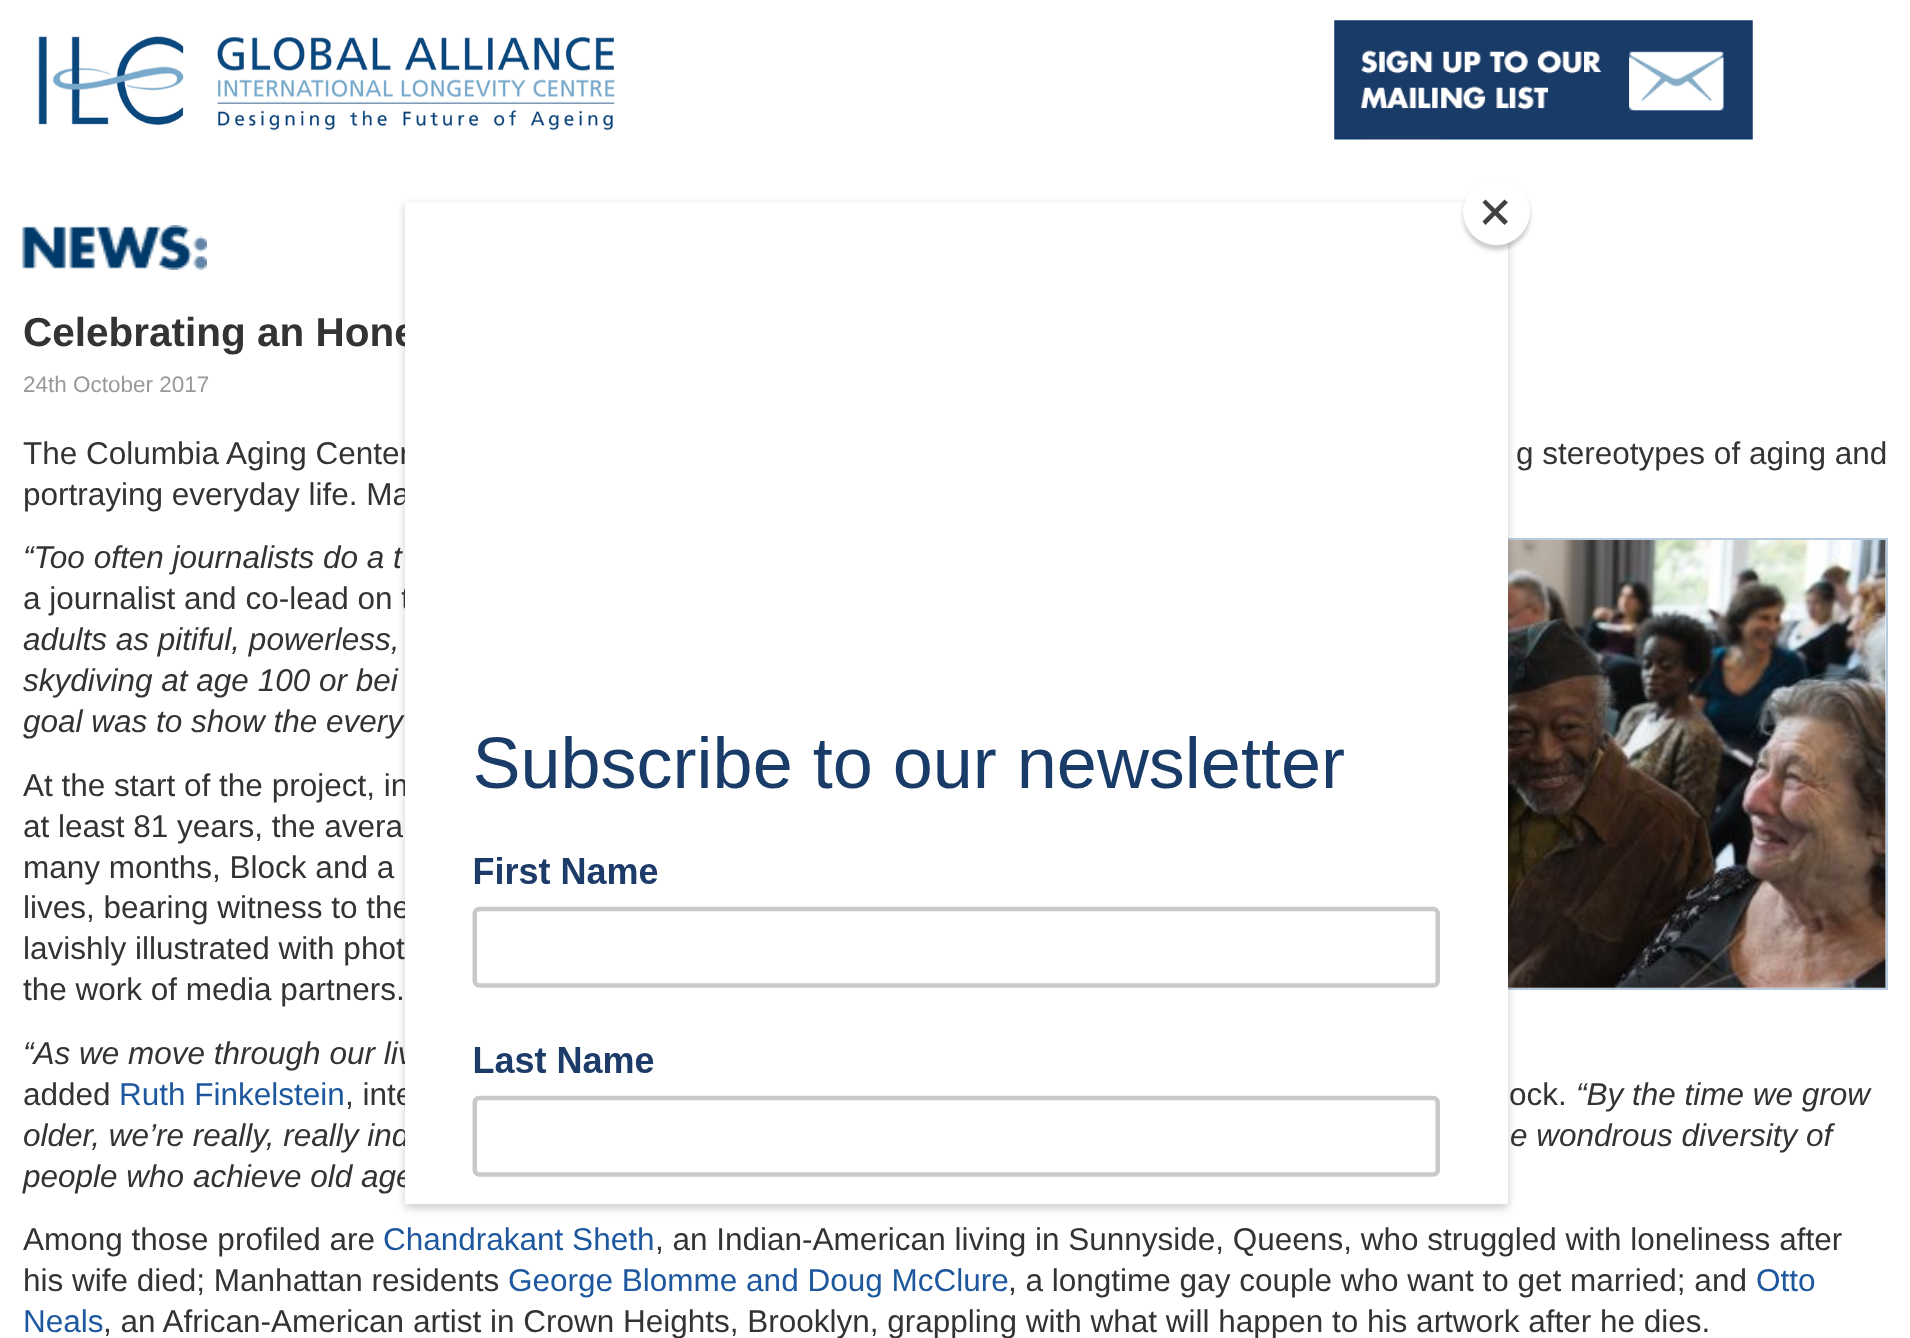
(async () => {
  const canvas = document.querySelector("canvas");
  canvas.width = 1910;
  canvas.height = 1338;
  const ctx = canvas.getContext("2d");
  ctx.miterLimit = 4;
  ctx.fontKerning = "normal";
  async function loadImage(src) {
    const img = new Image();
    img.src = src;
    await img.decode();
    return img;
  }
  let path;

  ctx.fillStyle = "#ffffff";
  ctx.fillRect(0, 0, 1910, 1338);
  ctx.drawImage(await loadImage("img/1.png"), 38, 36, 577, 95);
  ctx.strokeStyle = "#b6cbe0";
  ctx.lineWidth = 2;
  ctx.strokeRect(1209, 539, 678, 450);
  ctx.drawImage(await loadImage("img/5.png"), 1508, 540, 378, 448);
  ctx.fillStyle = "rgba(0, 0, 0, 0.2)";
  ctx.filter = "blur(4.5px)";
  ctx.beginPath();
  ctx.rect(405, 205, 1103, 1003);
  ctx.fill();
  ctx.filter = "none";
  ctx.drawImage(await loadImage("img/3.png"), 1334, 20, 419, 120);
  ctx.drawImage(await loadImage("img/4.png"), 22, 225, 185, 45);
  ctx.font = "bold 40.5px Liberation Sans";
  ctx.fillStyle = "#333333";
  ctx.fillText("Celebrating an Hone", 23, 346);
  ctx.font = "22.5px Liberation Sans";
  ctx.fillStyle = "#999999";
  ctx.fillText("24th October 2017", 23, 392);
  ctx.font = "31.5px Liberation Sans";
  ctx.fillStyle = "#333333";
  for (const [text, x, y] of [
    ["The Columbia Aging Center", 23, 464],
    ["g stereotypes of aging and", 1516, 464],
    ["portraying everyday life. Ma", 23, 505],
  ]) {
    ctx.fillText(text, x, y);
  }
  ctx.font = "italic 31.5px Liberation Sans";
  ctx.fillText("“Too often journalists do a t", 23, 568);
  ctx.font = "31.5px Liberation Sans";
  ctx.fillText("a journalist and co-lead on t", 23, 609);
  ctx.font = "italic 31.5px Liberation Sans";
  for (const [text, x, y] of [
    ["adults as pitiful, powerless,", 23, 650],
    ["skydiving at age 100 or bei", 23, 691],
    ["goal was to show the every", 23, 732],
  ]) {
    ctx.fillText(text, x, y);
  }
  ctx.font = "31.5px Liberation Sans";
  for (const [text, x, y] of [
    ["At the start of the project, in", 23, 796],
    ["at least 81 years, the avera", 23, 837],
    ["many months, Block and a", 23, 878],
    ["lives, bearing witness to the", 23, 918],
    ["lavishly illustrated with phot", 23, 959],
    ["the work of media partners.", 23, 1000],
  ]) {
    ctx.fillText(text, x, y);
  }
  ctx.font = "italic 31.5px Liberation Sans";
  ctx.fillText("“As we move through our liv", 23, 1064);
  ctx.font = "31.5px Liberation Sans";
  ctx.fillText("added", 23, 1105);
  ctx.fillStyle = "#1d579d";
  ctx.fillText("Ruth Finkelstein", 119, 1105);
  ctx.fillStyle = "#333333";
  ctx.fillText(", inte", 345, 1105);
  ctx.fillText("ock.", 1509, 1105);
  ctx.font = "italic 31.5px Liberation Sans";
  for (const [text, x, y] of [
    ["“By the time we grow", 1576, 1105],
    ["older, we’re really, really ind", 23, 1146],
    ["e wondrous diversity of", 1510, 1146],
    ["people who achieve old age", 23, 1187],
  ]) {
    ctx.fillText(text, x, y);
  }
  ctx.drawImage(await loadImage("img/2.png"), 405, 202, 1103, 1002);
  ctx.fillStyle = "rgba(0, 0, 0, 0.2)";
  ctx.filter = "blur(2px)";
  ctx.beginPath();
  ctx.roundRect(1463, 182, 67, 68, 33.5);
  ctx.fill();
  ctx.filter = "none";
  ctx.fillStyle = "#ffffff";
  ctx.beginPath();
  ctx.arc(1496.5, 211.5, 33.5, 0, Math.PI * 2);
  ctx.fill();
  ctx.fillStyle = "#414141";
  path = new Path2D("M1504.5 199.5L1508 202.5L1485.5 225L1482.5 221.5Z");
  ctx.fill(path);
  path = new Path2D("M1482.5 202.5L1485.5 199.5L1508 221.5L1504.5 225Z");
  ctx.fill(path);
  ctx.font = "31.5px Liberation Sans";
  ctx.fillStyle = "#333333";
  ctx.fillText("Among those profiled are", 23, 1250);
  ctx.fillStyle = "#1d579d";
  ctx.fillText("Chandrakant Sheth", 383, 1250);
  ctx.fillStyle = "#333333";
  ctx.fillText(", an Indian-American living in Sunnyside, Queens, who struggled with loneliness after", 655, 1250);
  ctx.fillText("his wife died; Manhattan residents", 23, 1291);
  ctx.fillStyle = "#1d579d";
  ctx.fillText("George Blomme and Doug McClure", 508, 1291);
  ctx.fillStyle = "#333333";
  ctx.fillText(", a longtime gay couple who want to get married; and", 1008, 1291);
  ctx.fillStyle = "#1d579d";
  ctx.fillText("Otto", 1756, 1291);
  ctx.fillText("Neals", 23, 1332);
  ctx.fillStyle = "#333333";
  ctx.fillText(", an African-American artist in Crown Heights, Brooklyn, grappling with what will happen to his artwork after he dies.", 103, 1332);
})();
